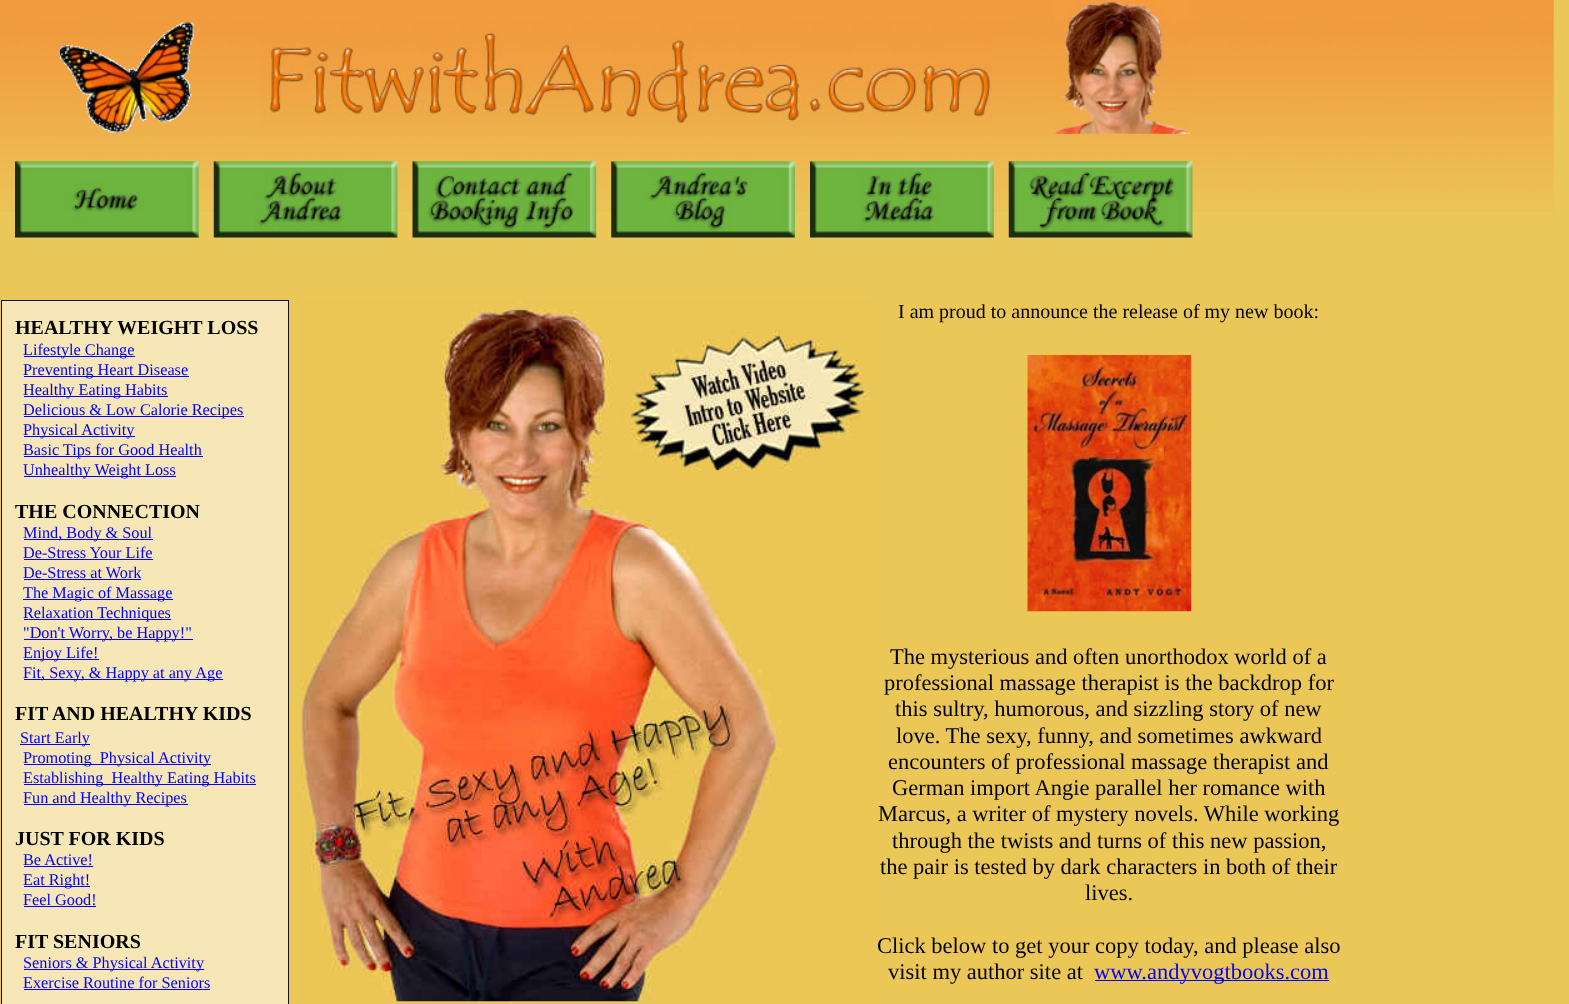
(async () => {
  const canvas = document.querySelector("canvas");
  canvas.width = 1569;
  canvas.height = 1004;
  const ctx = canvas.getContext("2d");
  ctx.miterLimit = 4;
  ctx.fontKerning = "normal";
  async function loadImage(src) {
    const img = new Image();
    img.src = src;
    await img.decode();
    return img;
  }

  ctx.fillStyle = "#ebc758";
  ctx.fillRect(0, 0, 1569, 1004);
  ctx.drawImage(await loadImage("img/1.png"), 0, 0, 1554, 212);
  ctx.drawImage(await loadImage("img/2.png"), 60, 22, 134, 111);
  ctx.drawImage(await loadImage("img/3.png"), 261, 26, 731, 101);
  ctx.drawImage(await loadImage("img/4.png"), 1054, 0, 136, 134);
  ctx.drawImage(await loadImage("img/5.png"), 15, 161, 184, 77);
  ctx.drawImage(await loadImage("img/6.png"), 213, 161, 185, 77);
  ctx.drawImage(await loadImage("img/7.png"), 412, 161, 185, 77);
  ctx.drawImage(await loadImage("img/8.png"), 611, 161, 184, 77);
  ctx.drawImage(await loadImage("img/9.png"), 810, 161, 184, 77);
  ctx.drawImage(await loadImage("img/10.png"), 1008, 161, 185, 77);
  for (const [x, y, w, h, color] of [
    [2, 301, 286, 703, "#f7e7b7"],
    [1, 300, 288, 1, "#111111"],
    [288, 300, 1, 704, "#111111"],
    [1, 300, 1, 704, "#111111"],
    [24, 356, 111, 1, "#0000ff"],
    [24, 376, 165, 1, "#0000ff"],
    [24, 396, 144, 1, "#0000ff"],
    [24, 416, 220, 1, "#0000ff"],
    [24, 436, 111, 1, "#0000ff"],
    [24, 456, 179, 1, "#0000ff"],
    [24, 476, 152, 1, "#0000ff"],
    [24, 539, 129, 1, "#0000ff"],
    [24, 559, 129, 1, "#0000ff"],
    [24, 579, 117, 1, "#0000ff"],
    [23, 599, 150, 1, "#0000ff"],
    [24, 619, 147, 1, "#0000ff"],
    [24, 639, 169, 1, "#0000ff"],
    [24, 659, 75, 1, "#0000ff"],
    [24, 679, 199, 1, "#0000ff"],
    [20, 744, 70, 1, "#0000ff"],
    [24, 764, 187, 1, "#0000ff"],
    [24, 784, 232, 1, "#0000ff"],
    [24, 804, 164, 1, "#0000ff"],
    [24, 866, 69, 1, "#0000ff"],
    [24, 886, 66, 1, "#0000ff"],
    [24, 906, 72, 1, "#0000ff"],
    [24, 969, 180, 1, "#0000ff"],
    [24, 989, 186, 1, "#0000ff"],
  ]) {
    ctx.fillStyle = color;
    ctx.fillRect(x, y, w, h);
  }
  ctx.drawImage(await loadImage("img/11.png"), 301, 300, 571, 702);
  ctx.drawImage(await loadImage("img/12.png"), 1027, 355, 165, 257);
  ctx.fillRect(1095, 980, 234, 1);
  ctx.font = "bold 20px Liberation Serif";
  ctx.fillStyle = "#000000";
  ctx.fillText("HEALTHY WEIGHT LOSS", 15, 334);
  ctx.font = "16.25px Liberation Serif";
  ctx.fillStyle = "#0000ff";
  for (const [text, x, y] of [
    ["Lifestyle Change", 23, 355],
    ["Preventing Heart Disease", 23, 375],
    ["Healthy Eating Habits", 23, 395],
    ["Delicious & Low Calorie Recipes", 23, 415],
    ["Physical Activity", 23, 435],
    ["Basic Tips for Good Health", 23, 455],
    ["Unhealthy Weight Loss", 23, 475],
  ]) {
    ctx.fillText(text, x, y);
  }
  ctx.font = "bold 20px Liberation Serif";
  ctx.fillStyle = "#000000";
  ctx.fillText("THE CONNECTION", 15, 518);
  ctx.font = "16.25px Liberation Serif";
  ctx.fillStyle = "#0000ff";
  for (const [text, x, y] of [
    ["Mind, Body & Soul", 23, 538],
    ["De-Stress Your Life", 23, 558],
    ["De-Stress at Work", 23, 578],
    ["The Magic of Massage", 23, 598],
    ["Relaxation Techniques", 23, 618],
    ["\"Don't Worry, be Happy!\"", 23, 638],
    ["Enjoy Life!", 23, 658],
    ["Fit, Sexy, & Happy at any Age", 23, 678],
  ]) {
    ctx.fillText(text, x, y);
  }
  ctx.font = "bold 20px Liberation Serif";
  ctx.fillStyle = "#000000";
  ctx.fillText("FIT AND HEALTHY KIDS", 15, 720);
  ctx.font = "16.25px Liberation Serif";
  ctx.fillStyle = "#0000ff";
  for (const [text, x, y] of [
    ["Start Early", 20, 743],
    ["Promoting  Physical Activity", 23, 763],
    ["Establishing  Healthy Eating Habits", 23, 783],
    ["Fun and Healthy Recipes", 23, 803],
  ]) {
    ctx.fillText(text, x, y);
  }
  ctx.font = "bold 20px Liberation Serif";
  ctx.fillStyle = "#000000";
  ctx.fillText("JUST FOR KIDS", 15, 845);
  ctx.font = "16.25px Liberation Serif";
  ctx.fillStyle = "#0000ff";
  for (const [text, x, y] of [
    ["Be Active!", 23, 865],
    ["Eat Right!", 23, 885],
    ["Feel Good!", 23, 905],
  ]) {
    ctx.fillText(text, x, y);
  }
  ctx.font = "bold 20px Liberation Serif";
  ctx.fillStyle = "#000000";
  ctx.fillText("FIT SENIORS", 15, 948);
  ctx.font = "16.25px Liberation Serif";
  ctx.fillStyle = "#0000ff";
  ctx.fillText("Seniors & Physical Activity", 23, 968);
  ctx.fillText("Exercise Routine for Seniors", 23, 988);
  ctx.font = "20px Liberation Serif";
  ctx.fillStyle = "#000000";
  ctx.fillText("I am proud to announce the release of my new book:", 898, 318);
  ctx.font = "22.5px Liberation Serif";
  for (const [text, x, y] of [
    ["The mysterious and often unorthodox world of a", 890, 664],
    ["professional massage therapist is the backdrop for", 884, 690],
    ["this sultry, humorous, and sizzling story of new", 895, 716],
    ["love. The sexy, funny, and sometimes awkward", 896, 743],
    ["encounters of professional massage therapist and", 888, 769],
    ["German import Angie parallel her romance with", 892, 795],
    ["Marcus, a writer of mystery novels. While working", 878, 821],
    ["through the twists and turns of this new passion,", 892, 848],
    ["the pair is tested by dark characters in both of their", 880, 874],
    ["lives.", 1085, 900],
    ["Click below to get your copy today, and please also", 877, 953],
    ["visit my author site at", 888, 979],
  ]) {
    ctx.fillText(text, x, y);
  }
  ctx.fillStyle = "#0000ff";
  ctx.fillText("www.andyvogtbooks.com", 1094, 979);
})();
